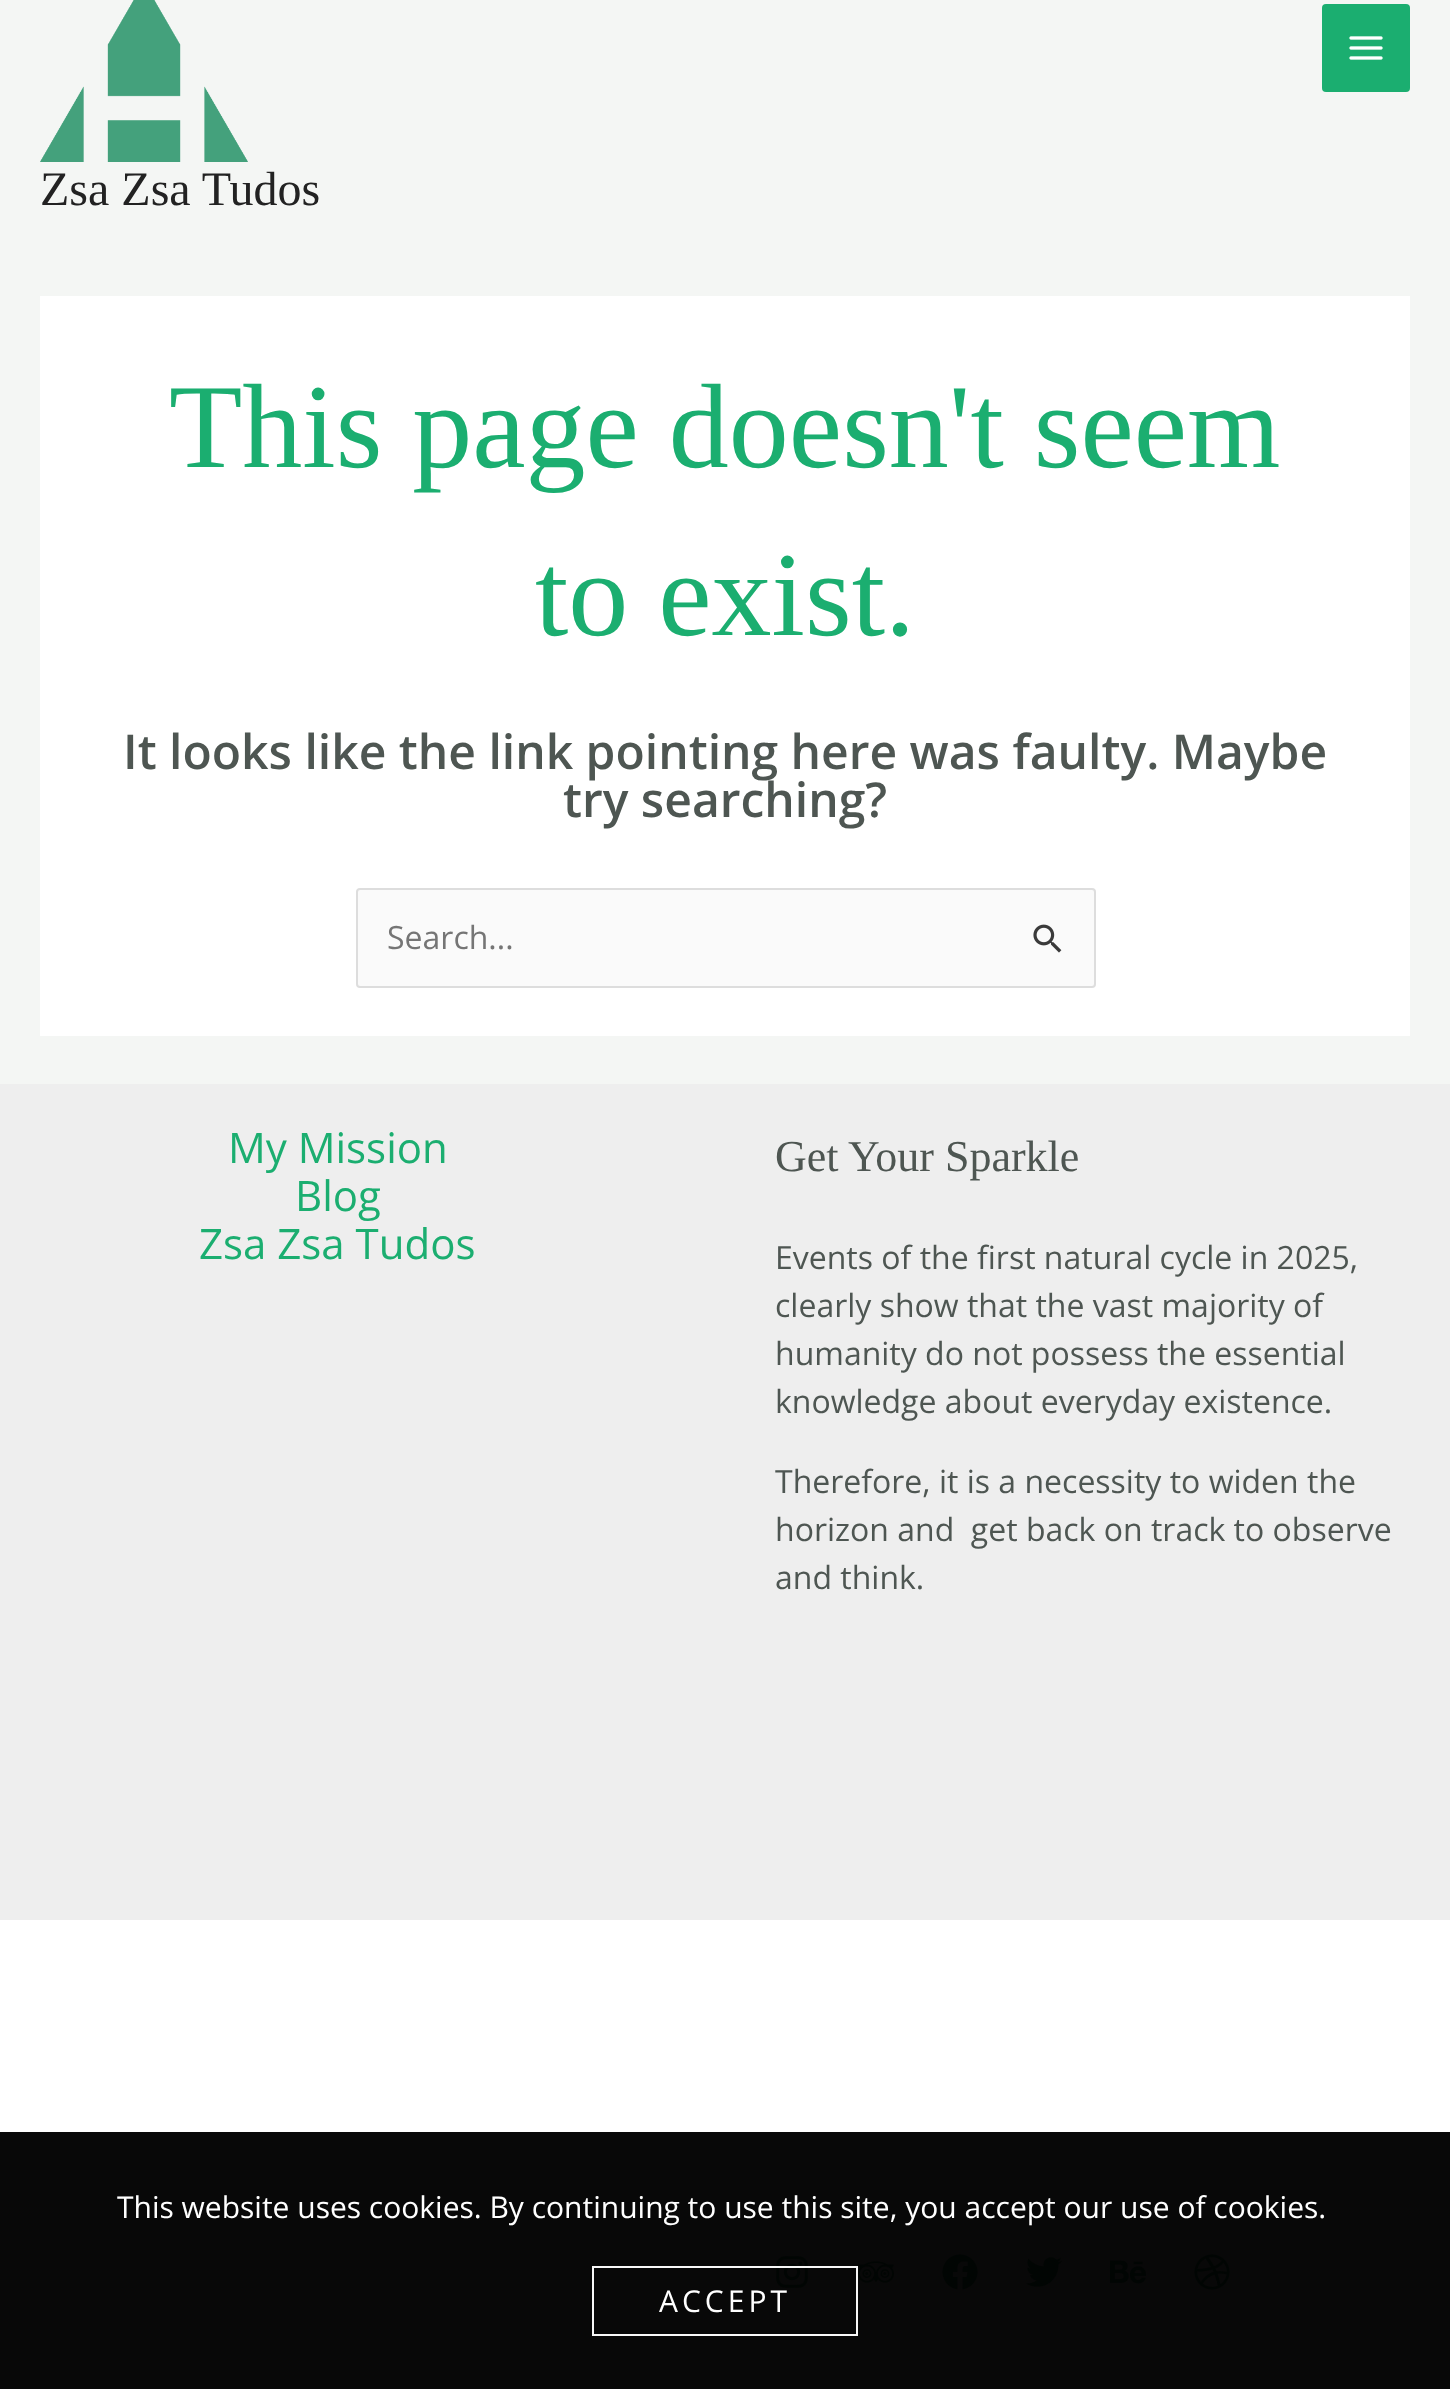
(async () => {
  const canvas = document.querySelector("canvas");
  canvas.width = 1450;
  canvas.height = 2389;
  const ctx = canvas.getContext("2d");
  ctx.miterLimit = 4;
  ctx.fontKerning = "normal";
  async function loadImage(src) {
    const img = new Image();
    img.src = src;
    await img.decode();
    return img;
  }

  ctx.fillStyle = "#f4f6f4";
  ctx.fillRect(0, 0, 1450, 2389);
  ctx.fillStyle = "#1bae70";
  ctx.beginPath();
  ctx.roundRect(1322, 4, 88, 88, 4);
  ctx.fill();
  ctx.drawImage(await loadImage("img/1.png"), 1349, 36, 34, 24);
  ctx.drawImage(await loadImage("img/2.png"), 40, 0, 208, 162);
  ctx.fillStyle = "#ffffff";
  ctx.fillRect(40, 296, 1370, 740);
  ctx.fillStyle = "#fafafa";
  ctx.beginPath();
  ctx.roundRect(357, 889, 738, 98, 3);
  ctx.fill();
  ctx.strokeStyle = "#dddddd";
  ctx.lineWidth = 2;
  ctx.stroke();
  ctx.drawImage(await loadImage("img/3.png"), 1033, 924, 29, 29);
  for (const [x, y, w, h, color] of [
    [0, 1920, 1450, 212, "#ffffff"],
    [0, 2132, 1450, 257, "#080808"],
    [0, 1084, 1450, 836, "#eeeeee"],
  ]) {
    ctx.fillStyle = color;
    ctx.fillRect(x, y, w, h);
  }
  ctx.drawImage(await loadImage("img/4.png"), 776, 2256, 32, 32);
  ctx.drawImage(await loadImage("img/5.png"), 858, 2261, 36, 22);
  ctx.drawImage(await loadImage("img/6.png"), 942, 2254, 36, 36);
  ctx.drawImage(await loadImage("img/7.png"), 1026, 2257, 36, 30);
  ctx.drawImage(await loadImage("img/8.png"), 1110, 2260, 36, 24);
  ctx.drawImage(await loadImage("img/9.png"), 1194, 2254, 36, 36);
  ctx.strokeStyle = "rgba(255, 255, 255, 0.97)";
  ctx.strokeRect(593, 2267, 264, 68);
  ctx.font = "48px Liberation Serif";
  ctx.fillStyle = "#222222";
  ctx.fillText("Zsa Zsa Tudos", 40, 205);
  ctx.font = "120px Liberation Serif";
  ctx.fillStyle = "#1bae70";
  ctx.fillText("This page doesn't seem", 169, 467);
  ctx.fillText("to exist.", 535, 635);
  ctx.font = "600 48px Open Sans";
  ctx.fillStyle = "#4e5652";
  ctx.fillText("It looks like the link pointing here was faulty. Maybe", 123, 769);
  ctx.fillText("try searching?", 563, 817);
  ctx.font = "32px Open Sans";
  ctx.fillStyle = "#757575";
  ctx.fillText("Search...", 387, 949);
  ctx.font = "42px Open Sans";
  ctx.fillStyle = "#1bae70";
  for (const [text, x, y] of [
    ["My Mission", 228, 1163],
    ["Blog", 295, 1211],
    ["Zsa Zsa Tudos", 199, 1259],
  ]) {
    ctx.fillText(text, x, y);
  }
  ctx.font = "44px Liberation Serif";
  ctx.fillStyle = "#4e5652";
  ctx.fillText("Get Your Sparkle", 775, 1171);
  ctx.font = "32px Open Sans";
  for (const [text, x, y] of [
    ["Events of the first natural cycle in 2025,", 775, 1269],
    ["clearly show that the vast majority of", 775, 1317],
    ["humanity do not possess the essential", 775, 1365],
    ["knowledge about everyday existence.", 775, 1413],
    ["Therefore, it is a necessity to widen the", 775, 1493],
    ["horizon and  get back on track to observe", 775, 1541],
    ["and think.", 775, 1589],
  ]) {
    ctx.fillText(text, x, y);
  }
  ctx.font = "30px Open Sans";
  ctx.fillStyle = "#ffffff";
  ctx.fillText("This website uses cookies. By continuing to use this site, you accept our use of cookies.", 117, 2218);
  ctx.letterSpacing = "4px";
  ctx.fillText("ACCEPT", 659, 2312);
})();
